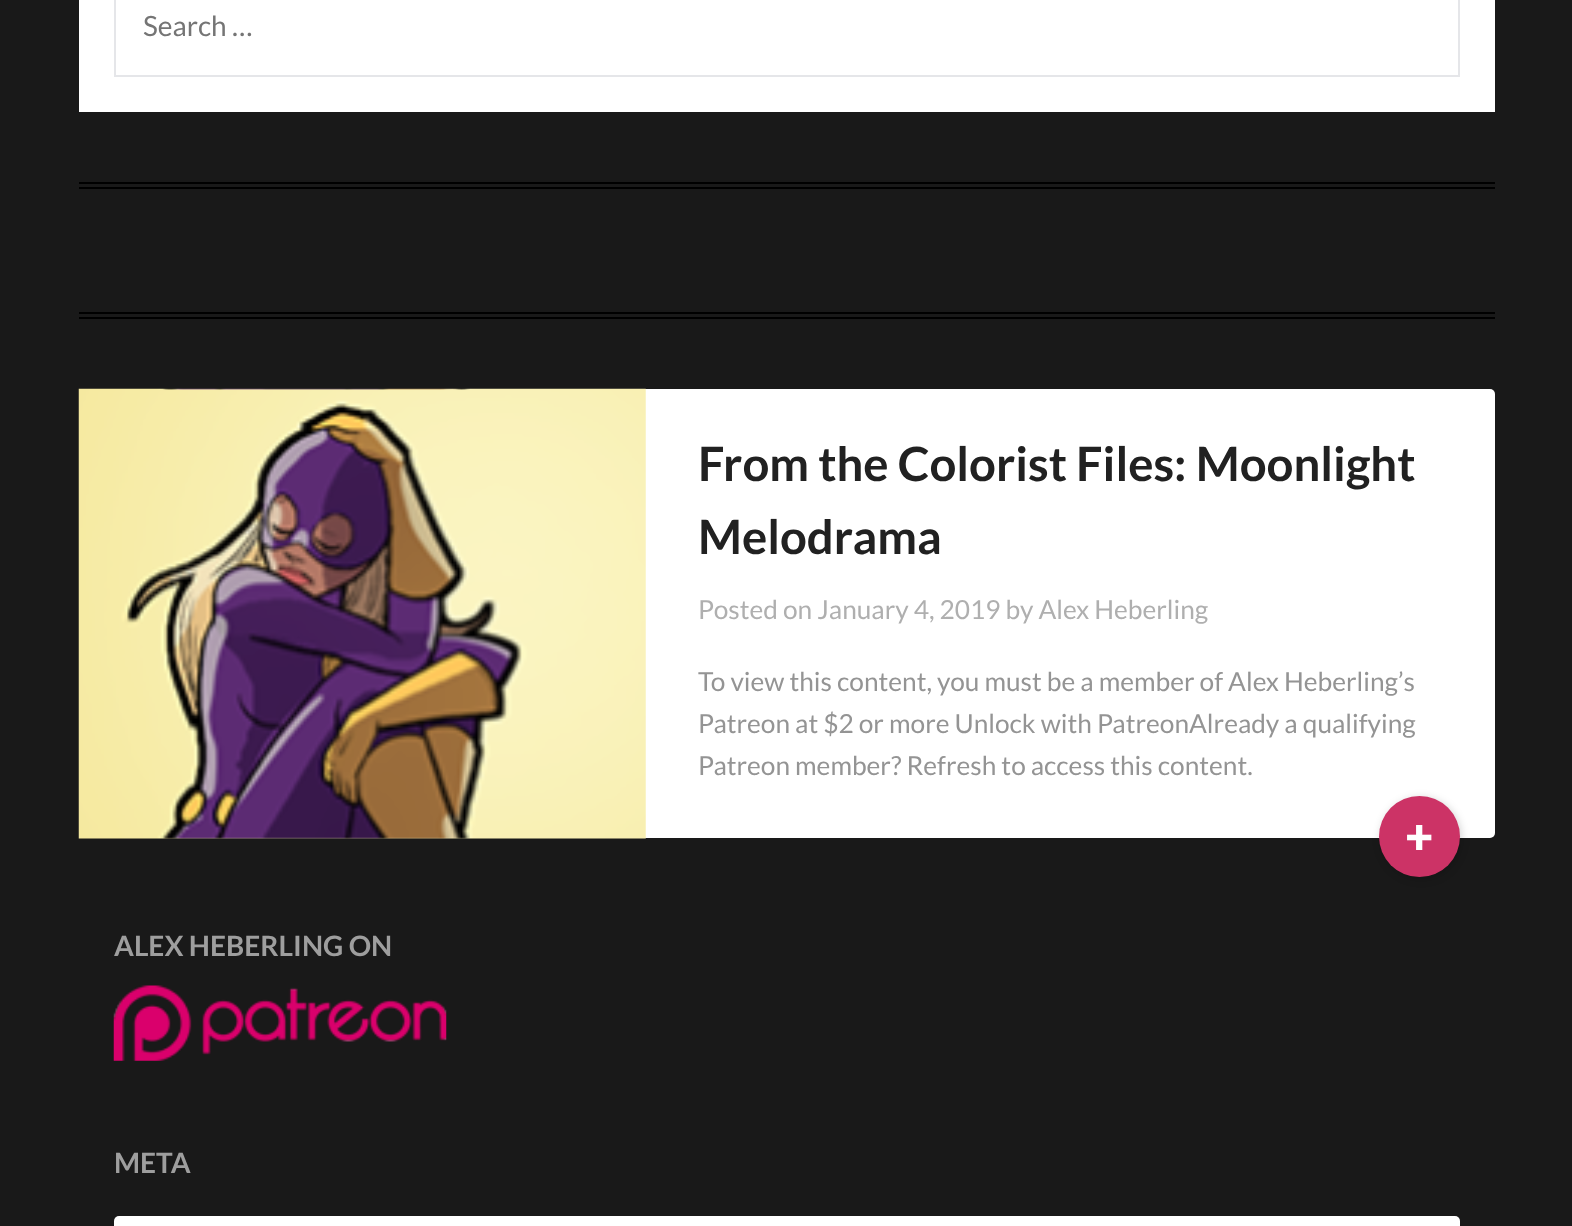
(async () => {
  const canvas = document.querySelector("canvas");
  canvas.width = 1572;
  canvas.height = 1226;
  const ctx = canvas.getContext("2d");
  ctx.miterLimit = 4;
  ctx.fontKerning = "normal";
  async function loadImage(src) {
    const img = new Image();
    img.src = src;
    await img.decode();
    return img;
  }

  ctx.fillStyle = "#191919";
  ctx.fillRect(0, 0, 1572, 1226);
  ctx.fillStyle = "#ffffff";
  ctx.fillRect(79, 0, 1416, 112);
  ctx.strokeStyle = "#e5e6e9";
  ctx.lineWidth = 2;
  ctx.strokeRect(115, -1, 1344, 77);
  for (const [x, y, w, h, color] of [
    [79, 182, 1416, 2, "#000000"],
    [79, 187, 1416, 2, "#000000"],
    [79, 312, 1416, 2, "#000000"],
    [79, 317, 1416, 2, "#000000"],
  ]) {
    ctx.fillStyle = color;
    ctx.fillRect(x, y, w, h);
  }
  ctx.fillStyle = "#ffffff";
  ctx.beginPath();
  ctx.roundRect(79, 389, 1416, 449, 5);
  ctx.fill();
  ctx.drawImage(await loadImage("img/1.png"), 78, 388, 568, 451);
  ctx.fillStyle = "rgba(0, 0, 0, 0.19)";
  ctx.filter = "blur(4.5px)";
  ctx.beginPath();
  ctx.roundRect(1381, 798, 80, 81, 40);
  ctx.fill();
  ctx.filter = "none";
  ctx.fillStyle = "#cc3366";
  ctx.beginPath();
  ctx.arc(1419.5, 836.5, 40.5, 0, Math.PI * 2);
  ctx.fill();
  ctx.drawImage(await loadImage("img/2.png"), 113, 985, 334, 76);
  ctx.fillStyle = "#ffffff";
  ctx.beginPath();
  ctx.roundRect(114, 1216, 1346, 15, 5);
  ctx.fill();
  ctx.font = "28px Lato";
  ctx.fillStyle = "#757575";
  ctx.fillText("Search …", 143, 36);
  ctx.font = "bold 47.25px Lato";
  ctx.fillStyle = "#212121";
  ctx.fillText("From the Colorist Files: Moonlight", 698, 481);
  ctx.fillText("Melodrama", 698, 554);
  ctx.font = "26.25px Lato";
  ctx.fillStyle = "#afafaf";
  ctx.fillText("Posted on January 4, 2019 by Alex Heberling", 698, 619);
  ctx.fillStyle = "#949494";
  for (const [text, x, y] of [
    ["To view this content, you must be a member of Alex Heberling’s", 698, 691],
    ["Patreon at $2 or more Unlock with PatreonAlready a qualifying", 698, 733],
    ["Patreon member? Refresh to access this content.", 698, 775],
  ]) {
    ctx.fillText(text, x, y);
  }
  ctx.font = "900 49px Lato";
  ctx.fillStyle = "#ffffff";
  ctx.fillText("+", 1405, 854);
  ctx.font = "bold 28px Lato";
  ctx.fillStyle = "#9e9e9e";
  ctx.fillText("ALEX HEBERLING ON", 114, 956);
  ctx.fillText("META", 114, 1173);
})();
